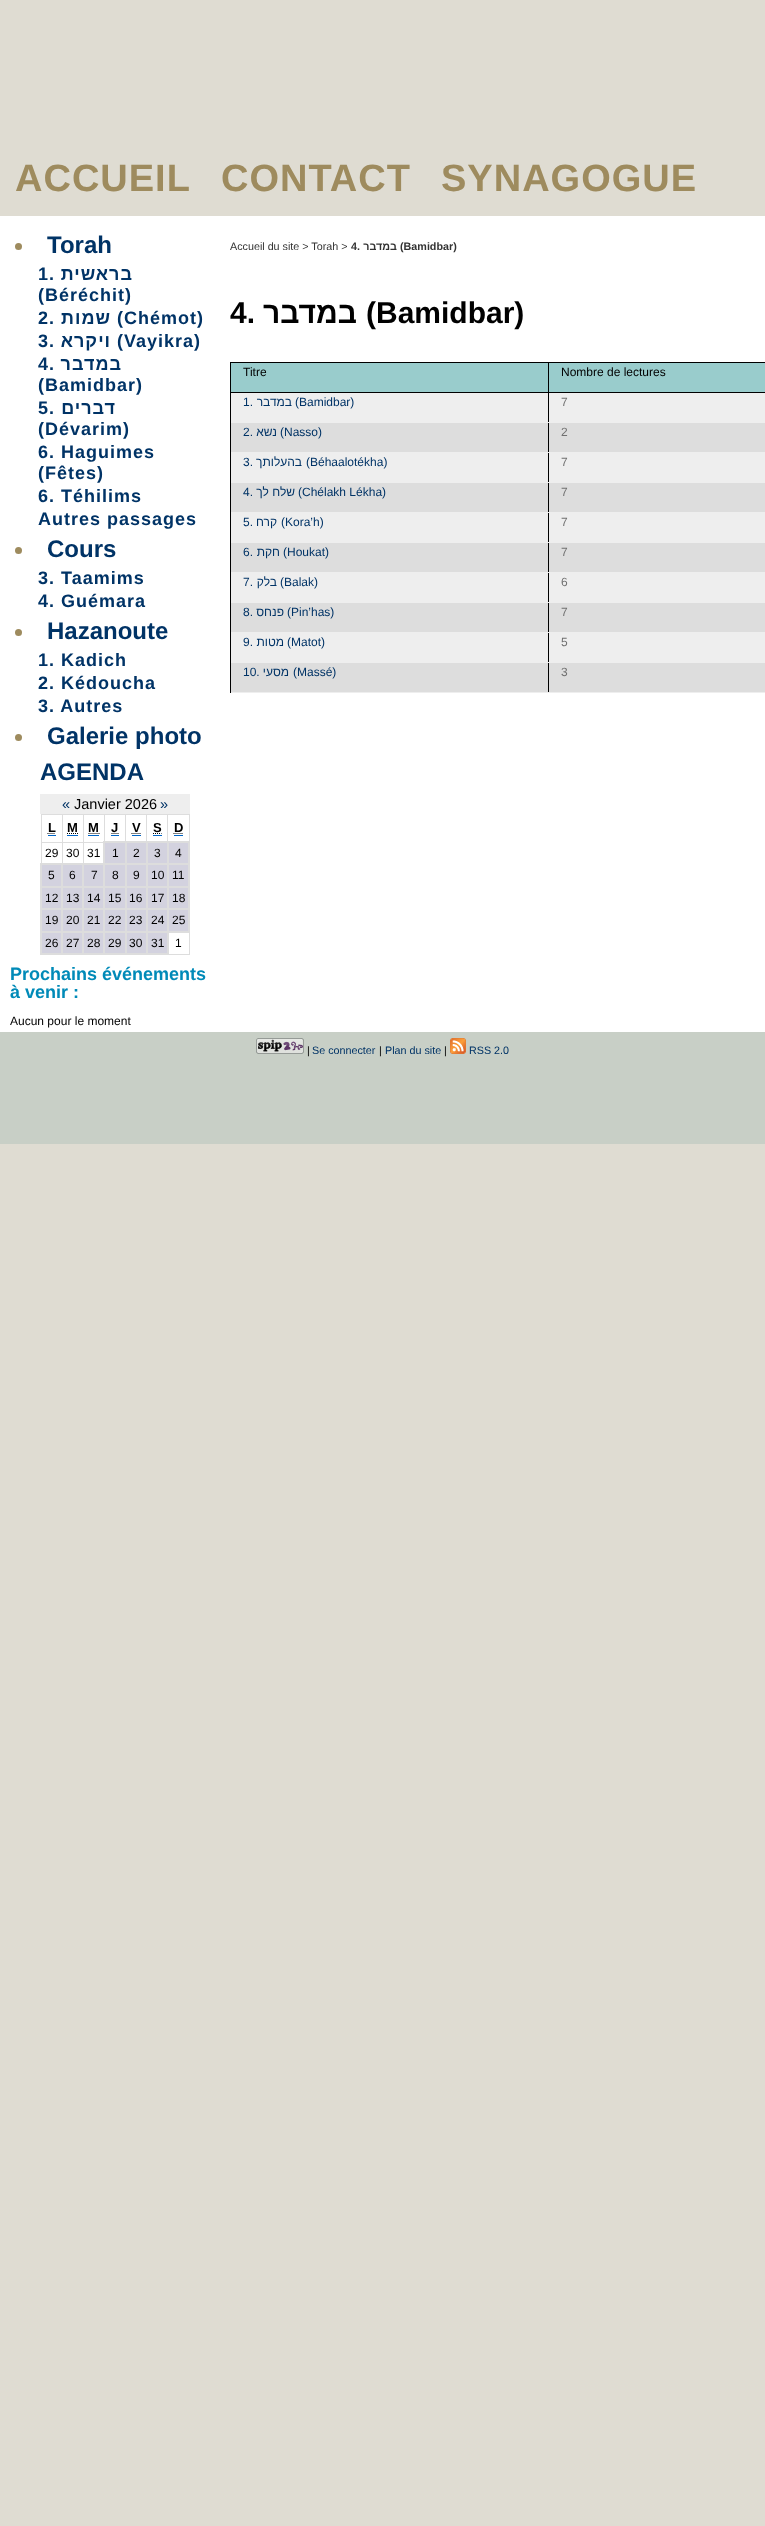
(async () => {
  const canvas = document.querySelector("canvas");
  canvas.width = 765;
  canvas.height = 2526;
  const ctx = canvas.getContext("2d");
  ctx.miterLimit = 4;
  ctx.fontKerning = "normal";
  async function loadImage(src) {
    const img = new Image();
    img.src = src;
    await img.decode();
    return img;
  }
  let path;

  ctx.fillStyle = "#dfdcd2";
  ctx.fillRect(0, 0, 765, 2526);
  ctx.fillStyle = "#ffffff";
  ctx.fillRect(0, 216, 765, 816);
  ctx.fillStyle = "#9e8b5e";
  ctx.beginPath();
  ctx.arc(18.5, 246.5, 3.5, 0, Math.PI * 2);
  ctx.fill();
  ctx.beginPath();
  ctx.arc(18.5, 550.5, 3.5, 0, Math.PI * 2);
  ctx.fill();
  ctx.beginPath();
  ctx.arc(18.5, 632.5, 3.5, 0, Math.PI * 2);
  ctx.fill();
  ctx.beginPath();
  ctx.arc(18.5, 737.5, 3.5, 0, Math.PI * 2);
  ctx.fill();
  for (const [x, y, w, h, color] of [
    [40, 794, 150, 20, "#eeeeee"],
    [41, 814, 149, 1, "#dddddd"],
    [189, 814, 1, 29, "#dddddd"],
    [41, 842, 62, 1, "#dddddd"],
    [41, 842, 1, 23, "#dddddd"],
    [41, 814, 1, 29, "#dddddd"],
    [48, 835, 8, 1, "#0065c6"],
  ]) {
    ctx.fillStyle = color;
    ctx.fillRect(x, y, w, h);
  }
  path = new Path2D("M47.5 833.5H55.5");
  ctx.strokeStyle = "#000000";
  ctx.setLineDash([1, 1]);
  ctx.stroke(path);
  ctx.fillRect(67, 835, 11, 1);
  path = new Path2D("M67 833.5H78");
  ctx.stroke(path);
  ctx.fillRect(88, 835, 11, 1);
  path = new Path2D("M88.5 833.5H99.5");
  ctx.stroke(path);
  ctx.fillStyle = "#dddddd";
  ctx.fillRect(104, 814, 1, 29);
  ctx.fillStyle = "#0065c6";
  ctx.fillRect(111, 835, 8, 1);
  path = new Path2D("M111.5 833.5H118.5");
  ctx.stroke(path);
  ctx.fillStyle = "#dddddd";
  ctx.fillRect(125, 814, 1, 29);
  ctx.fillStyle = "#0065c6";
  ctx.fillRect(132, 835, 9, 1);
  path = new Path2D("M131.5 833.5H140.5");
  ctx.stroke(path);
  ctx.fillStyle = "#dddddd";
  ctx.fillRect(146, 814, 1, 29);
  ctx.fillStyle = "#0065c6";
  ctx.fillRect(153, 835, 9, 1);
  path = new Path2D("M153 833.5H161.5");
  ctx.stroke(path);
  ctx.fillStyle = "#dddddd";
  ctx.fillRect(167, 814, 1, 29);
  ctx.fillStyle = "#0065c6";
  ctx.fillRect(174, 835, 9, 1);
  path = new Path2D("M173.5 833.5H183");
  ctx.stroke(path);
  for (const [x, y, w, h, color] of [
    [62, 814, 1, 51, "#dddddd"],
    [83, 814, 1, 51, "#dddddd"],
    [105, 843, 20, 20, "#d3d2df"],
    [167, 841, 23, 2, "#dddddd"],
    [167, 863, 23, 2, "#dddddd"],
    [167, 886, 23, 2, "#dddddd"],
    [167, 908, 23, 2, "#dddddd"],
    [189, 931, 1, 24, "#dddddd"],
    [188, 908, 2, 25, "#dddddd"],
    [146, 931, 23, 2, "#dddddd"],
    [167, 931, 2, 24, "#dddddd"],
    [167, 931, 23, 2, "#dddddd"],
    [167, 908, 2, 25, "#dddddd"],
    [146, 908, 23, 2, "#dddddd"],
    [167, 886, 2, 24, "#dddddd"],
    [146, 886, 23, 2, "#dddddd"],
    [167, 863, 2, 25, "#dddddd"],
    [146, 863, 23, 2, "#dddddd"],
    [167, 841, 2, 24, "#dddddd"],
    [146, 841, 23, 2, "#dddddd"],
    [146, 953, 23, 2, "#dddddd"],
    [146, 931, 2, 24, "#dddddd"],
    [125, 931, 23, 2, "#dddddd"],
    [146, 908, 2, 25, "#dddddd"],
    [125, 908, 23, 2, "#dddddd"],
    [146, 886, 2, 24, "#dddddd"],
    [125, 886, 23, 2, "#dddddd"],
    [146, 863, 2, 25, "#dddddd"],
    [125, 863, 23, 2, "#dddddd"],
    [146, 841, 2, 24, "#dddddd"],
    [125, 841, 23, 2, "#dddddd"],
    [125, 953, 23, 2, "#dddddd"],
    [125, 931, 2, 24, "#dddddd"],
    [103, 931, 24, 2, "#dddddd"],
    [125, 908, 2, 25, "#dddddd"],
    [103, 908, 24, 2, "#dddddd"],
    [125, 886, 2, 24, "#dddddd"],
    [103, 886, 24, 2, "#dddddd"],
    [125, 863, 2, 25, "#dddddd"],
    [103, 863, 24, 2, "#dddddd"],
    [125, 841, 2, 24, "#dddddd"],
    [103, 841, 24, 2, "#dddddd"],
    [103, 953, 24, 2, "#dddddd"],
    [103, 931, 2, 24, "#dddddd"],
    [82, 931, 23, 2, "#dddddd"],
    [103, 908, 2, 25, "#dddddd"],
    [82, 908, 23, 2, "#dddddd"],
    [103, 886, 2, 24, "#dddddd"],
    [82, 886, 23, 2, "#dddddd"],
    [103, 863, 2, 25, "#dddddd"],
    [82, 863, 23, 2, "#dddddd"],
    [103, 841, 2, 24, "#dddddd"],
    [127, 843, 19, 20, "#d3d2df"],
    [148, 843, 19, 20, "#d3d2df"],
    [169, 843, 19, 20, "#d3d2df"],
    [188, 886, 2, 24, "#dddddd"],
    [188, 863, 2, 25, "#dddddd"],
    [188, 841, 2, 24, "#dddddd"],
    [42, 865, 19, 21, "#d3d2df"],
    [82, 953, 23, 2, "#dddddd"],
    [82, 931, 2, 24, "#dddddd"],
    [61, 931, 23, 2, "#dddddd"],
    [82, 908, 2, 25, "#dddddd"],
    [61, 908, 23, 2, "#dddddd"],
    [82, 886, 2, 24, "#dddddd"],
    [61, 886, 23, 2, "#dddddd"],
    [82, 863, 2, 25, "#dddddd"],
    [61, 863, 23, 2, "#dddddd"],
    [61, 953, 23, 2, "#dddddd"],
    [61, 931, 2, 24, "#dddddd"],
    [40, 931, 23, 2, "#dddddd"],
    [61, 908, 2, 25, "#dddddd"],
    [40, 908, 23, 2, "#dddddd"],
    [61, 886, 2, 24, "#dddddd"],
    [40, 886, 23, 2, "#dddddd"],
    [61, 863, 2, 25, "#dddddd"],
    [40, 863, 23, 2, "#dddddd"],
    [40, 953, 23, 2, "#dddddd"],
    [40, 931, 2, 24, "#dddddd"],
    [40, 908, 2, 25, "#dddddd"],
    [40, 886, 2, 24, "#dddddd"],
    [40, 863, 2, 25, "#dddddd"],
    [63, 865, 19, 21, "#d3d2df"],
    [84, 865, 19, 21, "#d3d2df"],
    [105, 865, 20, 21, "#d3d2df"],
    [127, 865, 19, 21, "#d3d2df"],
    [148, 865, 19, 21, "#d3d2df"],
    [169, 865, 19, 21, "#d3d2df"],
    [42, 888, 19, 20, "#d3d2df"],
    [63, 888, 19, 20, "#d3d2df"],
    [84, 888, 19, 20, "#d3d2df"],
    [105, 888, 20, 20, "#d3d2df"],
    [127, 888, 19, 20, "#d3d2df"],
    [148, 888, 19, 20, "#d3d2df"],
    [169, 888, 19, 20, "#d3d2df"],
    [42, 910, 19, 21, "#d3d2df"],
    [63, 910, 19, 21, "#d3d2df"],
    [84, 910, 19, 21, "#d3d2df"],
    [105, 910, 20, 21, "#d3d2df"],
    [127, 910, 19, 21, "#d3d2df"],
    [148, 910, 19, 21, "#d3d2df"],
    [169, 910, 19, 21, "#d3d2df"],
    [169, 954, 21, 1, "#dddddd"],
    [42, 933, 19, 20, "#d3d2df"],
    [63, 933, 19, 20, "#d3d2df"],
    [84, 933, 19, 20, "#d3d2df"],
    [105, 933, 20, 20, "#d3d2df"],
    [127, 933, 19, 20, "#d3d2df"],
    [148, 933, 19, 20, "#d3d2df"],
    [231, 363, 317, 29, "#99cccc"],
    [548, 362, 217, 1, "#000000"],
    [231, 393, 534, 29, "#eeeeee"],
    [231, 423, 534, 29, "#dddddd"],
    [231, 453, 534, 29, "#eeeeee"],
    [231, 483, 534, 29, "#dddddd"],
    [231, 513, 534, 29, "#eeeeee"],
    [231, 543, 534, 29, "#dddddd"],
    [231, 573, 534, 29, "#eeeeee"],
    [231, 603, 534, 29, "#dddddd"],
    [231, 633, 534, 29, "#eeeeee"],
    [231, 663, 534, 29, "#dddddd"],
    [548, 692, 217, 1, "#eeeeee"],
    [548, 662, 1, 31, "#000000"],
    [548, 662, 217, 1, "#eeeeee"],
    [548, 632, 1, 31, "#000000"],
    [548, 632, 217, 1, "#eeeeee"],
    [548, 602, 1, 31, "#000000"],
    [548, 602, 217, 1, "#eeeeee"],
    [548, 572, 1, 31, "#000000"],
    [548, 572, 217, 1, "#eeeeee"],
    [548, 542, 1, 31, "#000000"],
    [548, 542, 217, 1, "#eeeeee"],
    [548, 512, 1, 31, "#000000"],
    [548, 512, 217, 1, "#eeeeee"],
    [548, 482, 1, 31, "#000000"],
    [548, 482, 217, 1, "#eeeeee"],
    [548, 452, 1, 31, "#000000"],
    [548, 452, 217, 1, "#eeeeee"],
    [548, 422, 1, 31, "#000000"],
    [548, 422, 217, 1, "#eeeeee"],
    [548, 392, 1, 31, "#000000"],
    [548, 392, 217, 1, "#000000"],
    [548, 362, 1, 31, "#000000"],
    [230, 362, 319, 1, "#000000"],
    [230, 692, 319, 1, "#eeeeee"],
    [230, 662, 1, 31, "#000000"],
    [230, 662, 319, 1, "#eeeeee"],
    [230, 632, 1, 31, "#000000"],
    [230, 632, 319, 1, "#eeeeee"],
    [230, 602, 1, 31, "#000000"],
    [230, 602, 319, 1, "#eeeeee"],
    [230, 572, 1, 31, "#000000"],
    [230, 572, 319, 1, "#eeeeee"],
    [230, 542, 1, 31, "#000000"],
    [230, 542, 319, 1, "#eeeeee"],
    [230, 512, 1, 31, "#000000"],
    [230, 512, 319, 1, "#eeeeee"],
    [230, 482, 1, 31, "#000000"],
    [230, 482, 319, 1, "#eeeeee"],
    [230, 452, 1, 31, "#000000"],
    [230, 452, 319, 1, "#eeeeee"],
    [230, 422, 1, 31, "#000000"],
    [230, 422, 319, 1, "#eeeeee"],
    [230, 392, 1, 31, "#000000"],
    [230, 392, 319, 1, "#000000"],
    [230, 362, 1, 31, "#000000"],
    [549, 363, 216, 29, "#99cccc"],
    [0, 1032, 765, 112, "#c8cfc6"],
  ]) {
    ctx.fillStyle = color;
    ctx.fillRect(x, y, w, h);
  }
  ctx.drawImage(await loadImage("img/1.png"), 256, 1038, 48, 16);
  ctx.drawImage(await loadImage("img/2.png"), 450, 1038, 16, 16);
  ctx.letterSpacing = "1px";
  ctx.font = "bold 38px Liberation Sans";
  ctx.fillStyle = "#9e8b5e";
  for (const [text, x, y] of [
    ["ACCUEIL", 15, 191],
    ["CONTACT", 221, 191],
    ["SYNAGOGUE", 441, 191],
  ]) {
    ctx.fillText(text, x, y);
  }
  ctx.letterSpacing = "0px";
  ctx.font = "bold 24px Liberation Sans";
  ctx.fillStyle = "#003366";
  ctx.fillText("Torah", 47, 253);
  ctx.letterSpacing = "1px";
  ctx.font = "bold 18px Liberation Sans";
  ctx.fillText("1.", 38, 280);
  ctx.direction = "rtl";
  ctx.fillText("בראשית", 133, 280);
  ctx.direction = "ltr";
  ctx.fillText("(Béréchit)", 38, 301);
  ctx.fillText("2.", 38, 324);
  ctx.direction = "rtl";
  ctx.fillText("שמות", 111, 324);
  ctx.direction = "ltr";
  ctx.fillText("(Chémot)", 117, 324);
  ctx.fillText("3.", 38, 347);
  ctx.direction = "rtl";
  ctx.fillText("ויקרא", 111, 347);
  ctx.direction = "ltr";
  ctx.fillText("(Vayikra)", 117, 347);
  ctx.fillText("4.", 38, 370);
  ctx.direction = "rtl";
  ctx.fillText("במדבר", 122, 370);
  ctx.direction = "ltr";
  ctx.fillText("(Bamidbar)", 38, 391);
  ctx.fillText("5.", 38, 414);
  ctx.direction = "rtl";
  ctx.fillText("דברים", 116, 414);
  ctx.direction = "ltr";
  for (const [text, x, y] of [
    ["(Dévarim)", 38, 435],
    ["6. Haguimes", 38, 458],
    ["(Fêtes)", 38, 479],
    ["6. Téhilims", 38, 502],
    ["Autres passages", 38, 525],
  ]) {
    ctx.fillText(text, x, y);
  }
  ctx.letterSpacing = "0px";
  ctx.font = "bold 24px Liberation Sans";
  ctx.fillText("Cours", 47, 557);
  ctx.letterSpacing = "1px";
  ctx.font = "bold 18px Liberation Sans";
  ctx.fillText("3. Taamims", 38, 584);
  ctx.fillText("4. Guémara", 38, 607);
  ctx.letterSpacing = "0px";
  ctx.font = "bold 24px Liberation Sans";
  ctx.fillText("Hazanoute", 47, 639);
  ctx.letterSpacing = "1px";
  ctx.font = "bold 18px Liberation Sans";
  for (const [text, x, y] of [
    ["1. Kadich", 38, 666],
    ["2. Kédoucha", 38, 689],
    ["3. Autres", 38, 712],
  ]) {
    ctx.fillText(text, x, y);
  }
  ctx.letterSpacing = "0px";
  ctx.font = "bold 24px Liberation Sans";
  ctx.fillText("Galerie photo", 47, 744);
  ctx.fillText("AGENDA", 40, 780);
  ctx.font = "14.5px Liberation Sans";
  ctx.fillText("«", 62, 809);
  ctx.fillStyle = "#000000";
  ctx.fillText("Janvier 2026", 74, 809);
  ctx.fillStyle = "#003366";
  ctx.fillText("»", 160, 809);
  ctx.font = "bold 13px Liberation Sans";
  ctx.fillStyle = "#000000";
  for (const [text, x, y] of [
    ["L", 48, 832],
    ["M", 67, 832],
    ["M", 88, 832],
    ["J", 111, 832],
    ["V", 132, 832],
    ["S", 153, 832],
    ["D", 174, 832],
  ]) {
    ctx.fillText(text, x, y);
  }
  ctx.font = "12px Liberation Sans";
  for (const [text, x, y] of [
    ["29", 45, 857],
    ["30", 66, 857],
    ["31", 87, 857],
    ["1", 112, 857],
    ["2", 133, 857],
    ["3", 154, 857],
    ["4", 175, 857],
    ["5", 48, 879],
    ["6", 69, 879],
    ["7", 91, 879],
    ["8", 112, 879],
    ["9", 133, 879],
    ["10", 151, 879],
    ["11", 172, 879],
    ["12", 45, 902],
    ["13", 66, 902],
    ["14", 87, 902],
    ["15", 108, 902],
    ["16", 129, 902],
    ["17", 151, 902],
    ["18", 172, 902],
    ["19", 45, 924],
    ["20", 66, 924],
    ["21", 87, 924],
    ["22", 108, 924],
    ["23", 129, 924],
    ["24", 151, 924],
    ["25", 172, 924],
    ["26", 45, 947],
    ["27", 66, 947],
    ["28", 87, 947],
    ["29", 108, 947],
    ["30", 129, 947],
    ["31", 151, 947],
    ["1", 175, 947],
  ]) {
    ctx.fillText(text, x, y);
  }
  ctx.font = "bold 18px Liberation Sans";
  ctx.fillStyle = "#008ab8";
  ctx.fillText("Prochains événements", 10, 980);
  ctx.fillText("à venir :", 10, 998);
  ctx.font = "12px Liberation Sans";
  ctx.fillStyle = "#000000";
  ctx.fillText("Aucun pour le moment", 10, 1025);
  ctx.font = "10.75px Liberation Sans";
  ctx.fillStyle = "#333333";
  ctx.fillText("Accueil du site > Torah >", 230, 250);
  ctx.font = "bold 10.75px Liberation Sans";
  ctx.fillText("4.", 351, 250);
  ctx.direction = "rtl";
  ctx.fillText("במדבר", 397, 250);
  ctx.direction = "ltr";
  ctx.fillText("(Bamidbar)", 400, 250);
  ctx.font = "bold 30px Liberation Sans";
  ctx.fillStyle = "#000000";
  ctx.fillText("4.", 230, 323);
  ctx.direction = "rtl";
  ctx.fillText("במדבר", 357, 323);
  ctx.direction = "ltr";
  ctx.fillText("(Bamidbar)", 366, 323);
  ctx.font = "12px Liberation Sans";
  ctx.fillText("Titre", 243, 376);
  ctx.fillText("Nombre de lectures", 561, 376);
  ctx.fillStyle = "#003366";
  ctx.fillText("1.", 243, 406);
  ctx.direction = "rtl";
  ctx.fillText("במדבר", 292, 406);
  ctx.direction = "ltr";
  ctx.fillText("(Bamidbar)", 295, 406);
  ctx.fillStyle = "#707070";
  ctx.fillText("7", 561, 406);
  ctx.fillStyle = "#003366";
  ctx.fillText("2.", 243, 436);
  ctx.direction = "rtl";
  ctx.fillText("נשא", 277, 436);
  ctx.direction = "ltr";
  ctx.fillText("(Nasso)", 280, 436);
  ctx.fillStyle = "#707070";
  ctx.fillText("2", 561, 436);
  ctx.fillStyle = "#003366";
  ctx.fillText("3.", 243, 466);
  ctx.direction = "rtl";
  ctx.fillText("בהעלותך", 302, 466);
  ctx.direction = "ltr";
  ctx.fillText("(Béhaalotékha)", 306, 466);
  ctx.fillStyle = "#707070";
  ctx.fillText("7", 561, 466);
  ctx.fillStyle = "#003366";
  ctx.fillText("4.", 243, 496);
  ctx.direction = "rtl";
  ctx.fillText("שלח לך", 295, 496);
  ctx.direction = "ltr";
  ctx.fillText("(Chélakh Lékha)", 298, 496);
  ctx.fillStyle = "#707070";
  ctx.fillText("7", 561, 496);
  ctx.fillStyle = "#003366";
  ctx.fillText("5.", 243, 526);
  ctx.direction = "rtl";
  ctx.fillText("קרח", 277, 526);
  ctx.direction = "ltr";
  ctx.fillText("(Kora’h)", 281, 526);
  ctx.fillStyle = "#707070";
  ctx.fillText("7", 561, 526);
  ctx.fillStyle = "#003366";
  ctx.fillText("6.", 243, 556);
  ctx.direction = "rtl";
  ctx.fillText("חקת", 280, 556);
  ctx.direction = "ltr";
  ctx.fillText("(Houkat)", 283, 556);
  ctx.fillStyle = "#707070";
  ctx.fillText("7", 561, 556);
  ctx.fillStyle = "#003366";
  ctx.fillText("7.", 243, 586);
  ctx.direction = "rtl";
  ctx.fillText("בלק", 277, 586);
  ctx.direction = "ltr";
  ctx.fillText("(Balak)", 280, 586);
  ctx.fillStyle = "#707070";
  ctx.fillText("6", 561, 586);
  ctx.fillStyle = "#003366";
  ctx.fillText("8.", 243, 616);
  ctx.direction = "rtl";
  ctx.fillText("פנחס", 284, 616);
  ctx.direction = "ltr";
  ctx.fillText("(Pin’has)", 287, 616);
  ctx.fillStyle = "#707070";
  ctx.fillText("7", 561, 616);
  ctx.fillStyle = "#003366";
  ctx.fillText("9.", 243, 646);
  ctx.direction = "rtl";
  ctx.fillText("מטות", 284, 646);
  ctx.direction = "ltr";
  ctx.fillText("(Matot)", 287, 646);
  ctx.fillStyle = "#707070";
  ctx.fillText("5", 561, 646);
  ctx.fillStyle = "#003366";
  ctx.fillText("10.", 243, 676);
  ctx.direction = "rtl";
  ctx.fillText("מסעי", 289, 676);
  ctx.direction = "ltr";
  ctx.fillText("(Massé)", 293, 676);
  ctx.fillStyle = "#707070";
  ctx.fillText("3", 561, 676);
  ctx.font = "10.75px Liberation Sans";
  ctx.fillStyle = "#000000";
  ctx.fillText("|", 307, 1054);
  ctx.fillStyle = "#003366";
  ctx.fillText("Se connecter", 312, 1054);
  ctx.fillStyle = "#000000";
  ctx.fillText("|", 379, 1054);
  ctx.fillStyle = "#003366";
  ctx.fillText("Plan du site", 385, 1054);
  ctx.fillStyle = "#000000";
  ctx.fillText("|", 444, 1054);
  ctx.fillStyle = "#003366";
  ctx.fillText("RSS 2.0", 469, 1054);
})();
